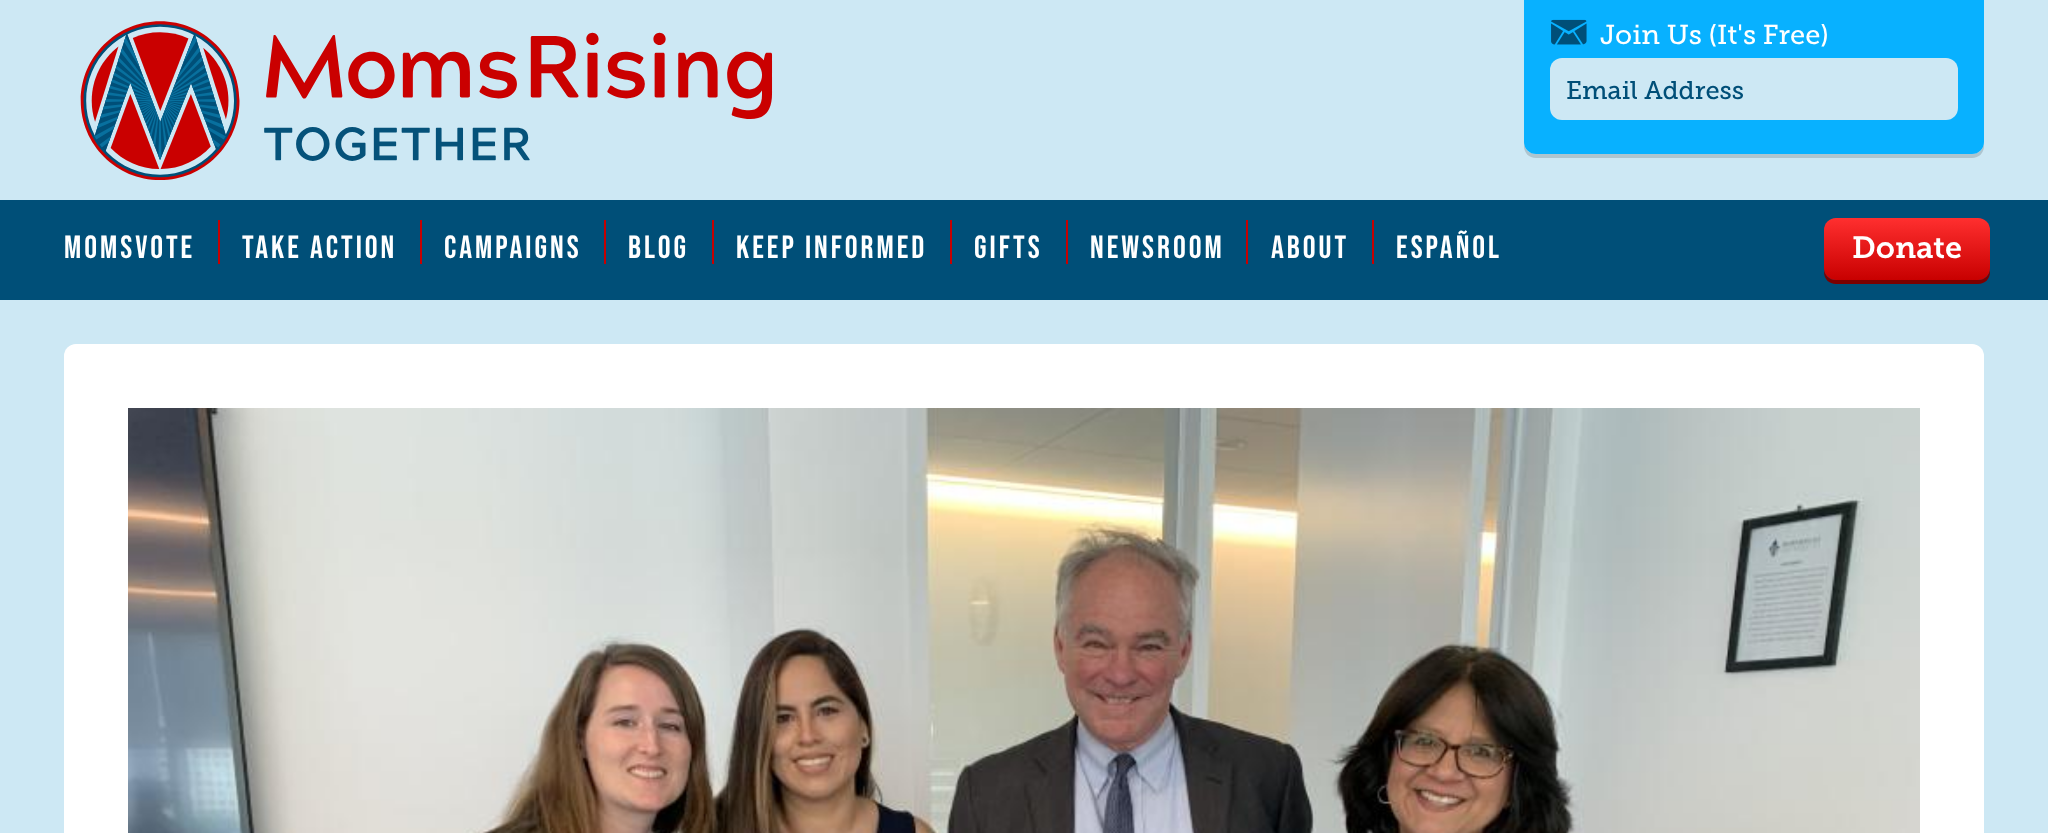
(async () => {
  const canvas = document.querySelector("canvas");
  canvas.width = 2048;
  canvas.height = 833;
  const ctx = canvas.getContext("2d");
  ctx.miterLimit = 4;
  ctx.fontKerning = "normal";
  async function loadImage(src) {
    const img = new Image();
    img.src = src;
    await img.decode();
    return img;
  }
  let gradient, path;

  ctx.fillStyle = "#cde8f4";
  ctx.fillRect(0, 0, 2048, 833);
  ctx.drawImage(await loadImage("img/1.png"), 80, 21, 693, 159);
  ctx.fillStyle = "#aec5cf";
  path = new Path2D("M1524 142V146C1524 153 1529 158 1536 158H1972C1979 158 1984 153 1984 146V142C1984 149 1979 154 1972 154H1536C1529 154 1524 149 1524 142Z");
  ctx.fill(path);
  ctx.fillStyle = "#08b1ff";
  ctx.beginPath();
  ctx.roundRect(1524, 0, 460, 154, [0, 0, 12, 12]);
  ctx.fill();
  ctx.drawImage(await loadImage("img/2.png"), 1551, 19, 36, 26);
  ctx.fillStyle = "#cde8f4";
  ctx.beginPath();
  ctx.roundRect(1550, 58, 408, 62, 12);
  ctx.fill();
  for (const [x, y, w, h, color] of [
    [0, 200, 2048, 100, "#004f78"],
    [218, 220, 2, 44, "#c80000"],
    [420, 220, 2, 44, "#c80000"],
    [604, 220, 2, 44, "#c80000"],
    [712, 220, 2, 44, "#c80000"],
    [950, 220, 2, 44, "#c80000"],
    [1066, 220, 2, 44, "#c80000"],
    [1246, 220, 2, 44, "#c80000"],
    [1372, 220, 2, 44, "#c80000"],
  ]) {
    ctx.fillStyle = color;
    ctx.fillRect(x, y, w, h);
  }
  ctx.fillStyle = "#7c0000";
  path = new Path2D("M1824 268V272C1824 279 1829 284 1836 284H1978C1985 284 1990 279 1990 272V268C1990 275 1985 280 1978 280H1836C1829 280 1824 275 1824 268Z");
  ctx.fill(path);
  gradient = ctx.createLinearGradient(1907, 218, 1907, 280);
  gradient.addColorStop(0, "#ff2f2f");
  gradient.addColorStop(1, "#c80000");
  ctx.fillStyle = gradient;
  ctx.beginPath();
  ctx.roundRect(1824, 218, 166, 62, 12);
  ctx.fill();
  ctx.fillStyle = "#ffffff";
  ctx.beginPath();
  ctx.roundRect(64, 344, 1920, 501, 12);
  ctx.fill();
  ctx.drawImage(await loadImage("img/3.png"), 128, 408, 1792, 425);
  ctx.font = "27.25px 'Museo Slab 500'";
  ctx.fillText("Join Us (It's Free)", 1600, 44);
  ctx.font = "25.5px 'Museo Slab 500'";
  ctx.fillStyle = "#004f78";
  ctx.fillText("Email Address", 1566, 99);
  ctx.letterSpacing = "3px";
  ctx.font = "32px Bebas Neue";
  ctx.fillStyle = "#ffffff";
  for (const [text, x, y] of [
    ["MOMSVOTE", 64, 258],
    ["TAKE ACTION", 242, 258],
    ["CAMPAIGNS", 444, 258],
    ["BLOG", 628, 258],
    ["KEEP INFORMED", 736, 258],
    ["GIFTS", 974, 258],
    ["NEWSROOM", 1090, 258],
    ["ABOUT", 1271, 258],
    ["ESPAÑOL", 1396, 258],
  ]) {
    ctx.fillText(text, x, y);
  }
  ctx.letterSpacing = "0px";
  ctx.font = "600 30.5px 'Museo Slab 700'";
  ctx.fillText("Donate", 1852, 258);
})();
